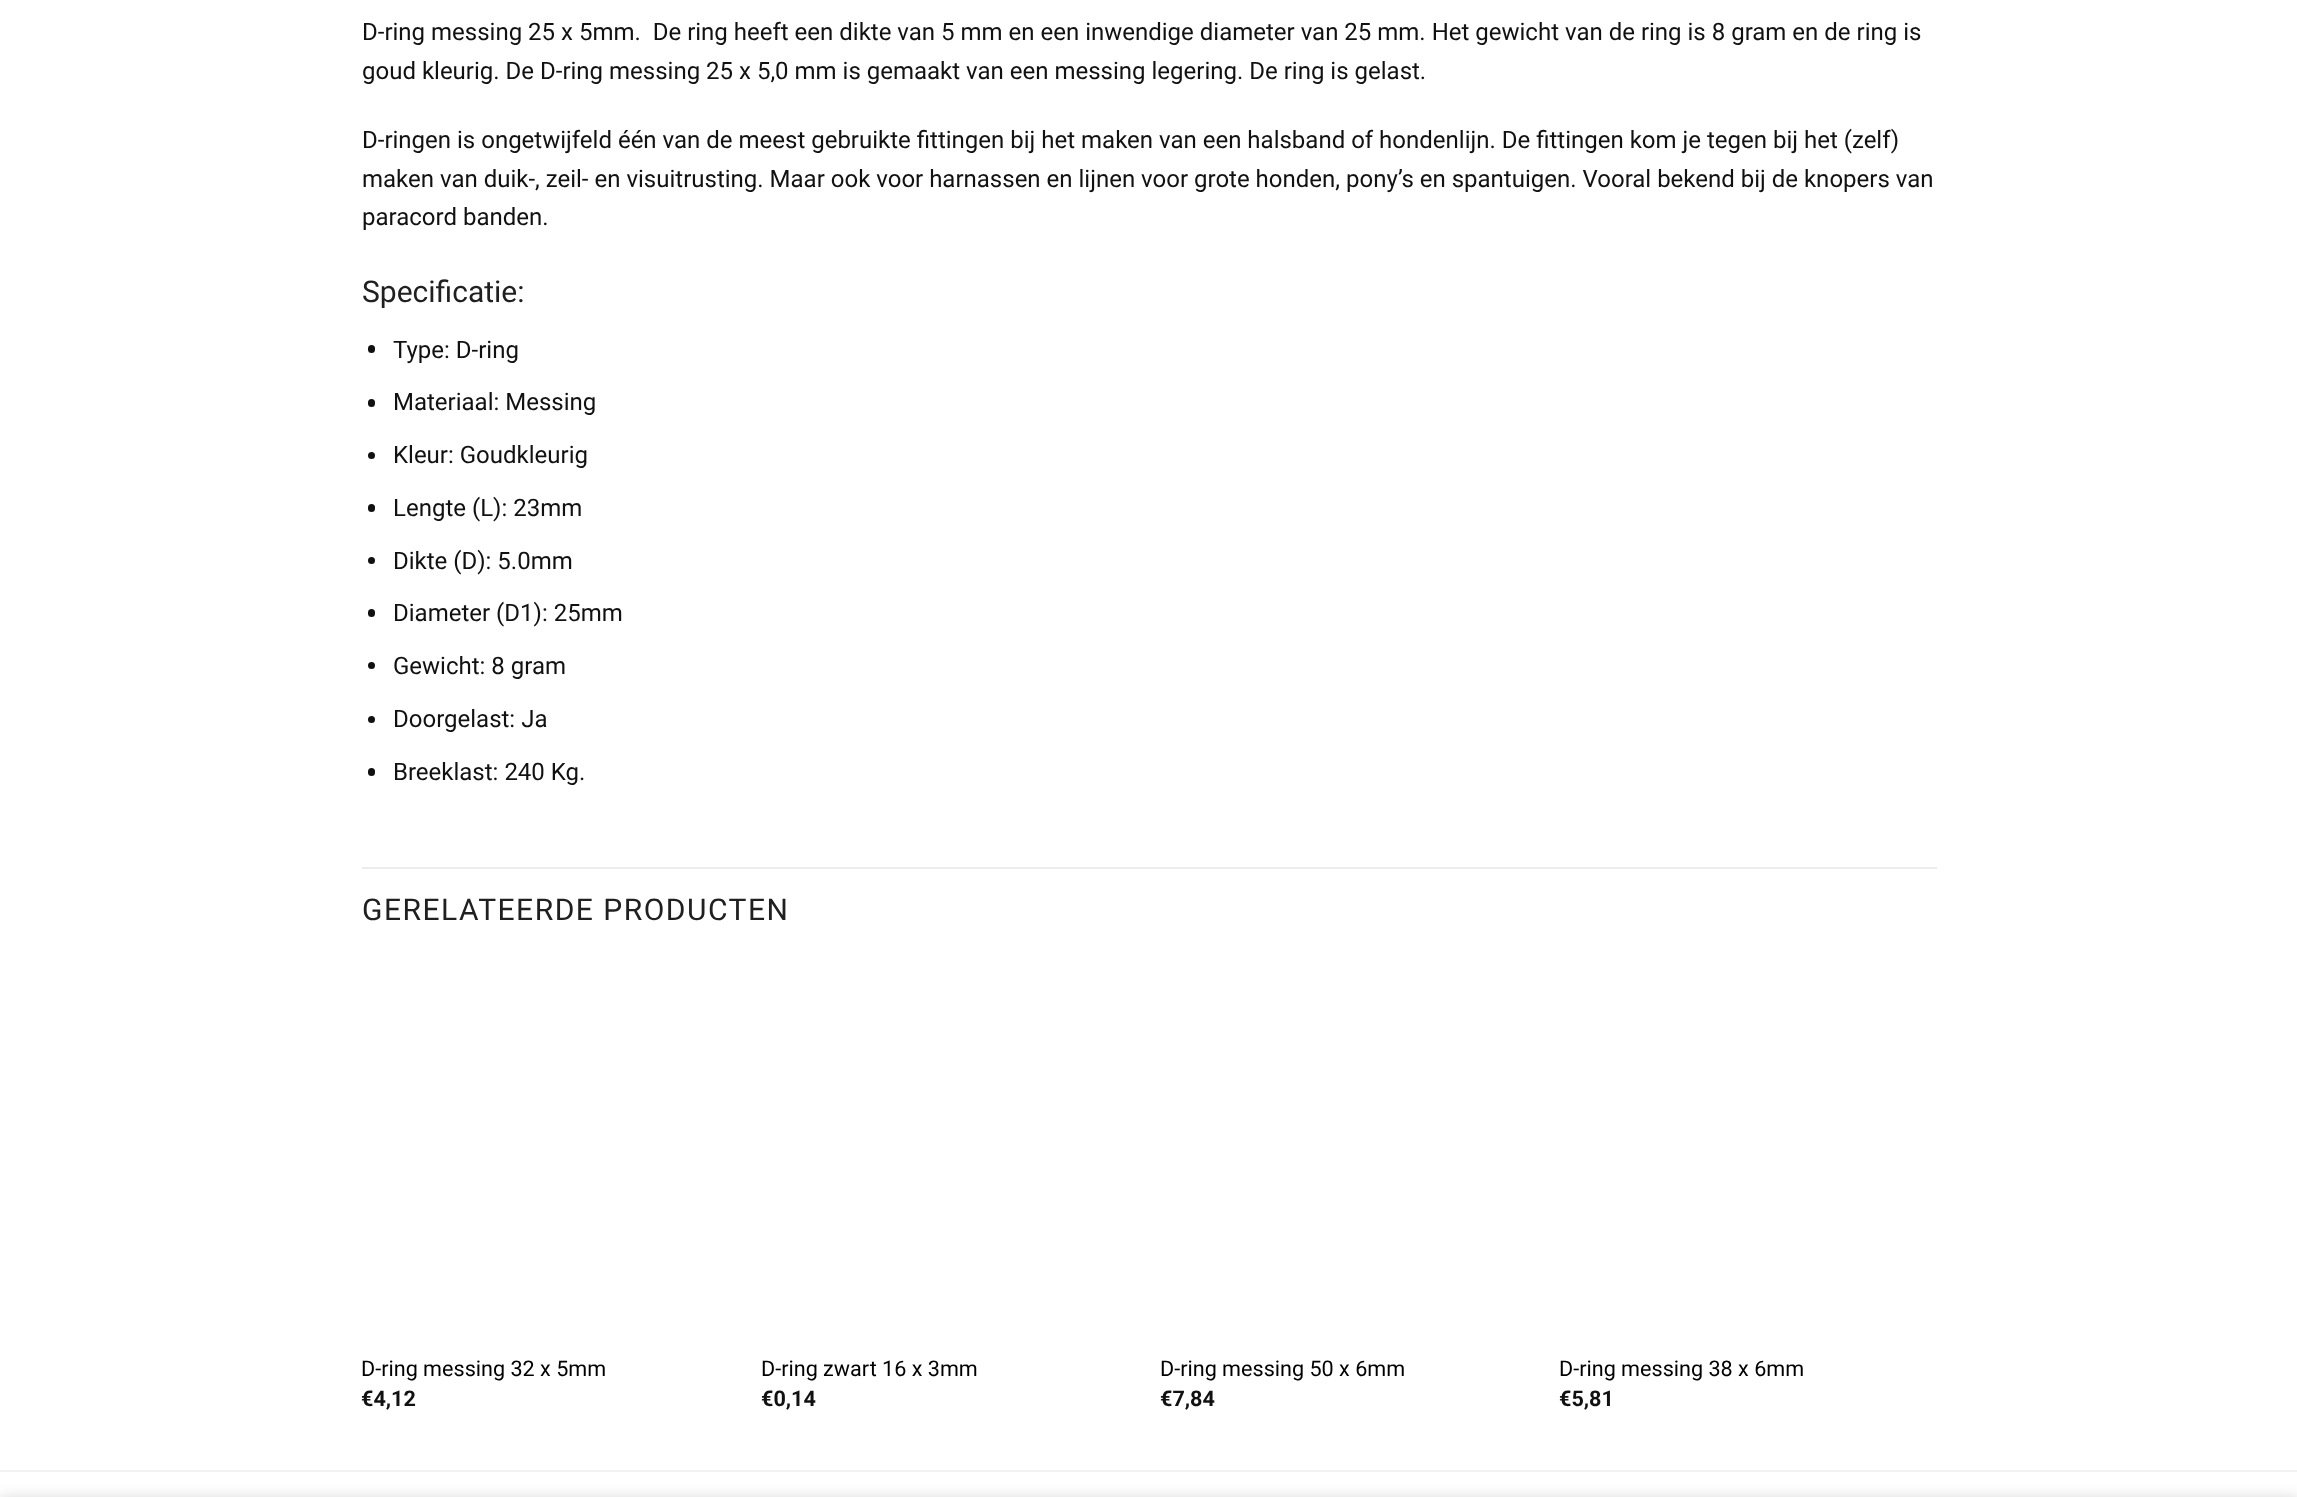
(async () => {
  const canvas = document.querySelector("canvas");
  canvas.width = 2297;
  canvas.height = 1497;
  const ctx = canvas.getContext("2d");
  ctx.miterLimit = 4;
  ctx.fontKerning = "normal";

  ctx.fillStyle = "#ffffff";
  ctx.fillRect(0, 0, 2297, 1497);
  ctx.fillStyle = "#111111";
  ctx.beginPath();
  ctx.roundRect(368, 345, 7, 8, 3.5);
  ctx.fill();
  ctx.beginPath();
  ctx.roundRect(368, 399, 7, 8, 3.5);
  ctx.fill();
  ctx.beginPath();
  ctx.arc(371.5, 455.5, 3.5, 0, Math.PI * 2);
  ctx.fill();
  ctx.beginPath();
  ctx.roundRect(368, 504, 7, 8, 3.5);
  ctx.fill();
  ctx.beginPath();
  ctx.arc(371.5, 560.5, 3.5, 0, Math.PI * 2);
  ctx.fill();
  ctx.beginPath();
  ctx.roundRect(368, 609, 7, 8, 3.5);
  ctx.fill();
  ctx.beginPath();
  ctx.arc(371.5, 665.5, 3.5, 0, Math.PI * 2);
  ctx.fill();
  ctx.beginPath();
  ctx.arc(371.5, 719.5, 3.5, 0, Math.PI * 2);
  ctx.fill();
  ctx.beginPath();
  ctx.roundRect(368, 768, 7, 8, 3.5);
  ctx.fill();
  ctx.fillStyle = "#ececec";
  ctx.fillRect(362, 867, 1575, 2);
  ctx.fillStyle = "#f2f2f2";
  ctx.fillRect(0, 1470, 2297, 2);
  ctx.fillStyle = "rgba(0, 0, 0, 0.14)";
  ctx.filter = "blur(7px)";
  ctx.beginPath();
  ctx.rect(0, 1497, 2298, 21);
  ctx.fill();
  ctx.filter = "none";
  ctx.font = "24px Roboto";
  ctx.fillStyle = "#111111";
  for (const [text, x, y] of [
    ["D-ring messing 25 x 5mm.  De ring heeft een dikte van 5 mm en een inwendige diameter van 25 mm. Het gewicht van de ring is 8 gram en de ring is", 362, 40],
    ["goud kleurig. De D-ring messing 25 x 5,0 mm is gemaakt van een messing legering. De ring is gelast.", 362, 79],
    ["D-ringen is ongetwijfeld één van de meest gebruikte fittingen bij het maken van een halsband of hondenlijn. De fittingen kom je tegen bij het (zelf)", 362, 148],
    ["maken van duik-, zeil- en visuitrusting. Maar ook voor harnassen en lijnen voor grote honden, pony’s en spantuigen. Vooral bekend bij de knopers van", 362, 187],
    ["paracord banden.", 362, 225],
  ]) {
    ctx.fillText(text, x, y);
  }
  ctx.font = "30px Roboto";
  ctx.fillStyle = "#212020";
  ctx.fillText("Specificatie:", 362, 302);
  ctx.font = "24px Roboto";
  ctx.fillStyle = "#111111";
  for (const [text, x, y] of [
    ["Type: D-ring", 393, 358],
    ["Materiaal: Messing", 393, 410],
    ["Kleur: Goudkleurig", 393, 463],
    ["Lengte (L): 23mm", 393, 516],
    ["Dikte (D): 5.0mm", 393, 569],
    ["Diameter (D1): 25mm", 393, 621],
    ["Gewicht: 8 gram", 393, 674],
    ["Doorgelast: Ja", 393, 727],
    ["Breeklast: 240 Kg.", 393, 780],
  ]) {
    ctx.fillText(text, x, y);
  }
  ctx.letterSpacing = "1.5px";
  ctx.font = "30px Roboto";
  ctx.fillStyle = "#212020";
  ctx.fillText("GERELATEERDE PRODUCTEN", 362, 920);
  ctx.letterSpacing = "0px";
  ctx.font = "21.6px Roboto";
  ctx.fillStyle = "#000000";
  ctx.fillText("D-ring messing 32 x 5mm", 361, 1376);
  ctx.font = "bold 21.6px Roboto";
  ctx.fillStyle = "#111111";
  ctx.fillText("€4,12", 361, 1406);
  ctx.font = "21.6px Roboto";
  ctx.fillStyle = "#000000";
  ctx.fillText("D-ring zwart 16 x 3mm", 761, 1376);
  ctx.font = "bold 21.6px Roboto";
  ctx.fillStyle = "#111111";
  ctx.fillText("€0,14", 761, 1406);
  ctx.font = "21.6px Roboto";
  ctx.fillStyle = "#000000";
  ctx.fillText("D-ring messing 50 x 6mm", 1160, 1376);
  ctx.font = "bold 21.6px Roboto";
  ctx.fillStyle = "#111111";
  ctx.fillText("€7,84", 1160, 1406);
  ctx.font = "21.6px Roboto";
  ctx.fillStyle = "#000000";
  ctx.fillText("D-ring messing 38 x 6mm", 1559, 1376);
  ctx.font = "bold 21.6px Roboto";
  ctx.fillStyle = "#111111";
  ctx.fillText("€5,81", 1559, 1406);
})();
